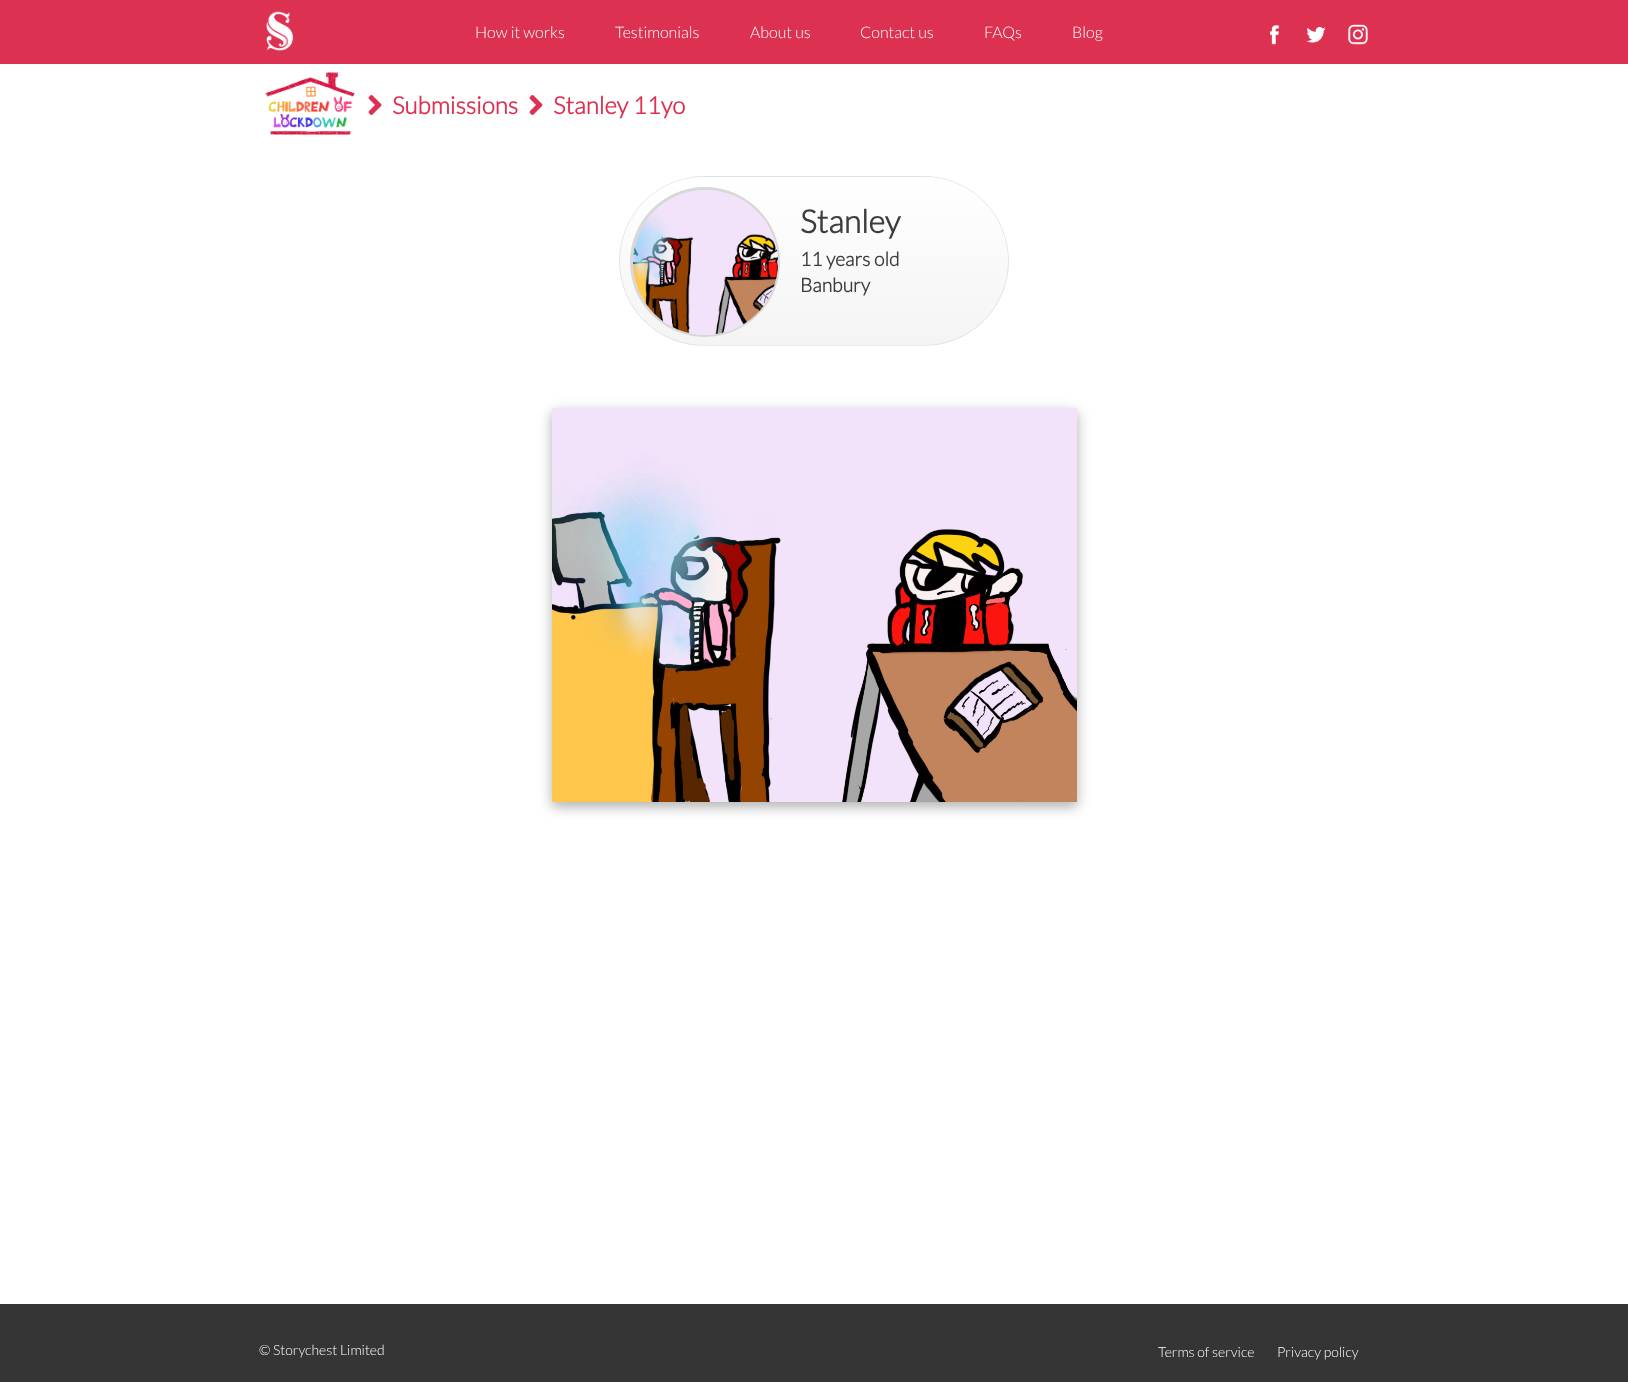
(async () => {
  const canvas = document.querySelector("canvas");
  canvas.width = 1628;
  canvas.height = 1382;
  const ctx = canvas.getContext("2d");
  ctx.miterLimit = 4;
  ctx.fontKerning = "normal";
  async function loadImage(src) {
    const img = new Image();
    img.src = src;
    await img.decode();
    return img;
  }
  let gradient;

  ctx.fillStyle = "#ffffff";
  ctx.fillRect(0, 0, 1628, 1382);
  ctx.fillStyle = "#dc3151";
  ctx.fillRect(0, 0, 1628, 64);
  ctx.drawImage(await loadImage("img/1.png"), 266, 11, 28, 40);
  ctx.drawImage(await loadImage("img/2.png"), 1270, 25, 9, 20);
  ctx.drawImage(await loadImage("img/3.png"), 1306, 26, 20, 17);
  ctx.drawImage(await loadImage("img/4.png"), 1348, 24, 20, 21);
  ctx.drawImage(await loadImage("img/5.png"), 265, 72, 90, 64);
  ctx.drawImage(await loadImage("img/6.png"), 368, 95, 14, 20);
  ctx.drawImage(await loadImage("img/6.png"), 529, 95, 14, 20);
  ctx.save();
  ctx.beginPath();
  ctx.roundRect(619, 176, 390, 170, 85);
  ctx.clip();
  gradient = ctx.createLinearGradient(814, 9, 814, 177);
  gradient.addColorStop(0, "#ffffff");
  gradient.addColorStop(1, "#f4f4f4");
  ctx.fillStyle = gradient;
  ctx.fillRect(691, 176, 246, 1);
  gradient = ctx.createLinearGradient(814, 177, 814, 345);
  gradient.addColorStop(0, "#ffffff");
  gradient.addColorStop(1, "#f4f4f4");
  ctx.fillStyle = gradient;
  ctx.fillRect(619, 177, 390, 168);
  ctx.restore();
  ctx.beginPath();
  ctx.roundRect(619.5, 176.5, 389, 169, 84.5);
  ctx.strokeStyle = "rgba(151, 151, 151, 0.2)";
  ctx.stroke();
  ctx.fillStyle = "#d8d8d8";
  ctx.beginPath();
  ctx.arc(705, 262, 75, 0, Math.PI * 2);
  ctx.fill();
  ctx.fillStyle = "#ededed";
  ctx.beginPath();
  ctx.arc(705.5, 262.5, 72.5, 0, Math.PI * 2);
  ctx.fill();
  ctx.drawImage(await loadImage("img/7.png"), 633, 190, 145, 145);
  ctx.fillStyle = "rgba(0, 0, 0, 0.15)";
  ctx.filter = "blur(7.5px)";
  ctx.beginPath();
  ctx.rect(552, 412, 525, 394);
  ctx.fill();
  ctx.filter = "none";
  ctx.fillStyle = "rgba(0, 0, 0, 0.18)";
  ctx.filter = "blur(5.5px)";
  ctx.beginPath();
  ctx.rect(552, 413, 525, 394);
  ctx.fill();
  ctx.filter = "none";
  ctx.drawImage(await loadImage("img/8.png"), 552, 408, 525, 394);
  ctx.fillStyle = "#353535";
  ctx.fillRect(0, 1304, 1628, 78);
  ctx.font = "300 16px Lato";
  ctx.fillStyle = "#ffffff";
  for (const [text, x, y] of [
    ["How it works", 475, 38],
    ["Testimonials", 615, 38],
    ["About us", 750, 38],
    ["Contact us", 860, 38],
    ["FAQs", 984, 38],
    ["Blog", 1072, 38],
  ]) {
    ctx.fillText(text, x, y);
  }
  ctx.font = "bold 24px Lato";
  ctx.fillStyle = "#dc3151";
  ctx.fillText("Submissions", 392, 114);
  ctx.fillText("Stanley 11yo", 553, 114);
  ctx.font = "bold 32px Lato";
  ctx.fillStyle = "#3e3e3e";
  ctx.fillText("Stanley", 800, 233);
  ctx.font = "bold 19.25px Lato";
  ctx.fillText("11 years old", 800, 266);
  ctx.fillText("Banbury", 800, 292);
  ctx.font = "300 14px Lato";
  ctx.fillStyle = "#ffffff";
  for (const [text, x, y] of [
    ["© Storychest Limited", 259, 1355],
    ["Terms of service", 1158, 1357],
    ["Privacy policy", 1277, 1357],
  ]) {
    ctx.fillText(text, x, y);
  }
})();
